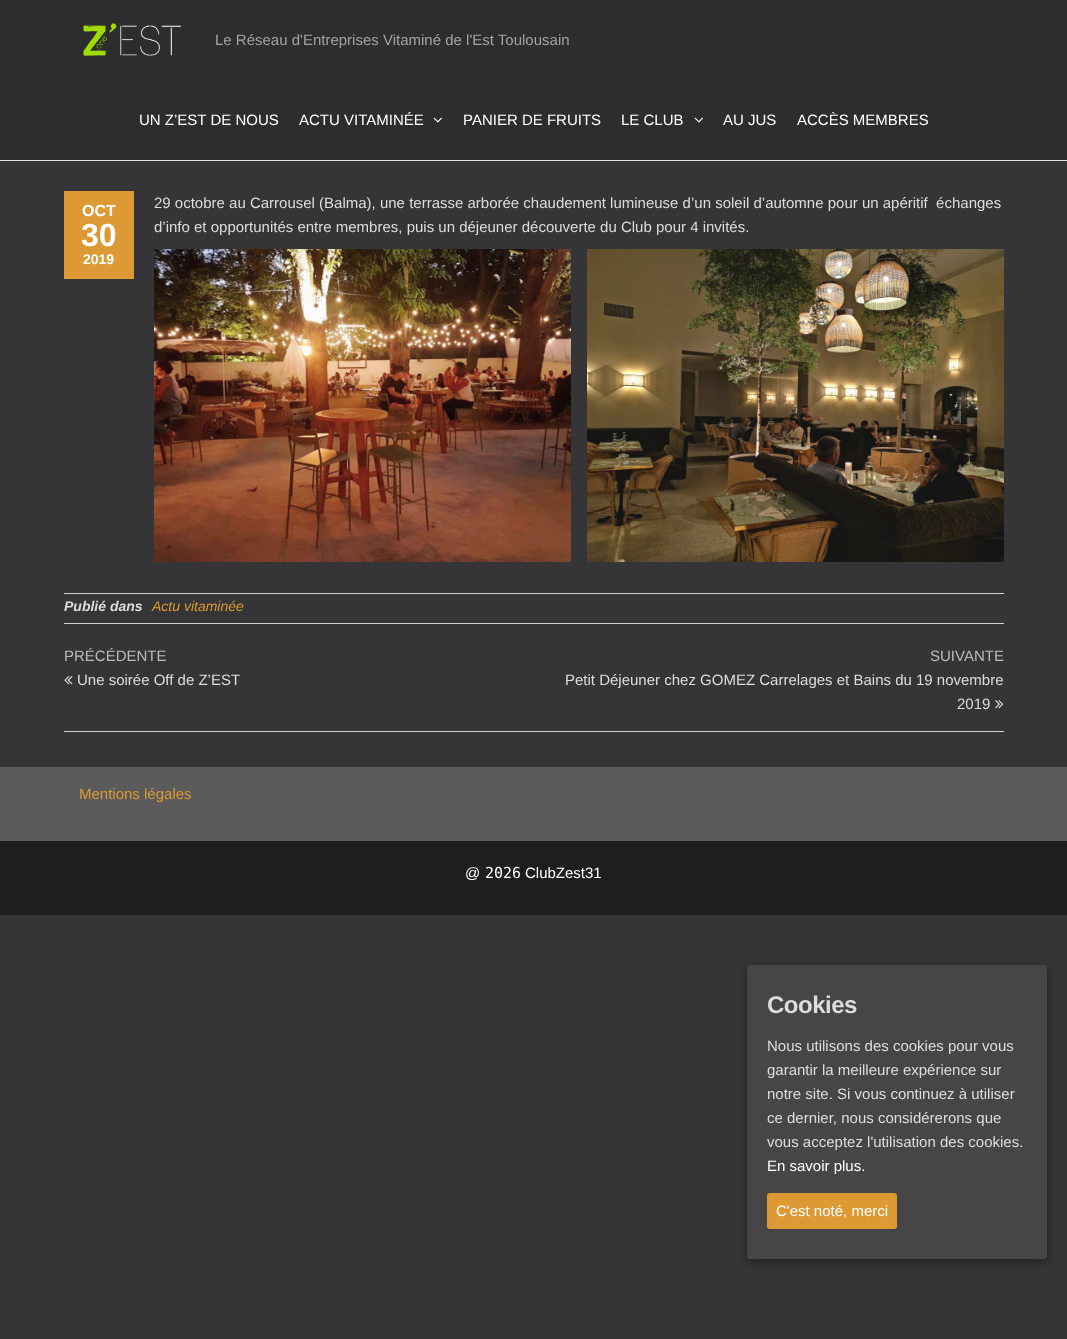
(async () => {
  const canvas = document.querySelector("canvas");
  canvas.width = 1067;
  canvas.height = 1339;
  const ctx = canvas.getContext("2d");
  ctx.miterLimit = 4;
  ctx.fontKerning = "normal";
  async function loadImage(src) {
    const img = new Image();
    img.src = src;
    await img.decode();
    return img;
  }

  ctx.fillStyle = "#353537";
  ctx.fillRect(0, 0, 1067, 1339);
  ctx.fillStyle = "#2d2d2d";
  ctx.fillRect(0, 0, 1067, 160);
  ctx.fillStyle = "#e2e2e2";
  ctx.fillRect(0, 160, 1067, 1);
  ctx.drawImage(await loadImage("img/1.png"), 83, 23, 99, 33);
  ctx.drawImage(await loadImage("img/2.png"), 433, 117, 9, 6);
  ctx.drawImage(await loadImage("img/2.png"), 694, 117, 9, 6);
  ctx.fillStyle = "#dd9933";
  ctx.fillRect(64, 191, 70, 88);
  ctx.drawImage(await loadImage("img/3.png"), 154, 249, 417, 313);
  ctx.drawImage(await loadImage("img/4.png"), 587, 249, 417, 313);
  for (const [x, y, w, h, color] of [
    [64, 593, 940, 1, "#d1d1d1"],
    [64, 623, 940, 1, "#d1d1d1"],
    [64, 731, 940, 1, "#d1d1d1"],
  ]) {
    ctx.fillStyle = color;
    ctx.fillRect(x, y, w, h);
  }
  ctx.drawImage(await loadImage("img/5.png"), 64, 676, 9, 9);
  ctx.drawImage(await loadImage("img/6.png"), 995, 700, 9, 9);
  ctx.fillStyle = "#5b5b5b";
  ctx.fillRect(0, 767, 1067, 74);
  ctx.fillStyle = "#1e1e1e";
  ctx.fillRect(0, 841, 1067, 74);
  ctx.fillStyle = "rgba(0, 0, 0, 0.4)";
  ctx.filter = "blur(4.5px)";
  ctx.beginPath();
  ctx.roundRect(747, 968, 300, 294, 3);
  ctx.fill();
  ctx.filter = "none";
  ctx.fillStyle = "#464646";
  ctx.beginPath();
  ctx.roundRect(747, 965, 300, 294, 3);
  ctx.fill();
  ctx.fillStyle = "#dd9933";
  ctx.beginPath();
  ctx.roundRect(767, 1193, 130, 36, 3);
  ctx.fill();
  ctx.font = "15px Liberation Sans";
  ctx.fillStyle = "#a3a3a3";
  ctx.fillText("Le Réseau d'Entreprises Vitaminé de l'Est Toulousain", 215, 45);
  ctx.fillStyle = "#ffffff";
  for (const [text, x, y] of [
    ["UN Z’EST DE NOUS", 139, 125],
    ["ACTU VITAMINÉE", 299, 125],
    ["PANIER DE FRUITS", 463, 125],
    ["LE CLUB", 621, 125],
    ["AU JUS", 723, 125],
    ["ACCÈS MEMBRES", 797, 125],
  ]) {
    ctx.fillText(text, x, y);
  }
  ctx.font = "bold 16px Liberation Sans";
  ctx.fillText("OCT", 82, 216);
  ctx.font = "bold 32px Liberation Sans";
  ctx.fillText("30", 81, 246);
  ctx.font = "bold 14px Liberation Sans";
  ctx.fillText("2019", 83, 264);
  ctx.font = "15px Liberation Sans";
  ctx.fillStyle = "#dddddd";
  ctx.fillText("29 octobre au Carrousel (Balma), une terrasse arborée chaudement lumineuse d’un soleil d’automne pour un apéritif  échanges", 154, 208);
  ctx.fillText("d’info et opportunités entre membres, puis un déjeuner découverte du Club pour 4 invités.", 154, 232);
  ctx.font = "italic bold 14px Liberation Sans";
  ctx.fillText("Publié dans", 64, 611);
  ctx.font = "italic 14px Liberation Sans";
  ctx.fillStyle = "#dd9933";
  ctx.fillText("Actu vitaminée", 152, 611);
  ctx.font = "15px Liberation Sans";
  ctx.fillStyle = "#bbbbbc";
  ctx.fillText("PRÉCÉDENTE", 64, 661);
  ctx.fillStyle = "#dddddd";
  ctx.fillText("Une soirée Off de Z’EST", 77, 685);
  ctx.fillStyle = "#bbbbbc";
  ctx.fillText("SUIVANTE", 930, 661);
  ctx.fillStyle = "#dddddd";
  ctx.fillText("Petit Déjeuner chez GOMEZ Carrelages et Bains du 19 novembre", 565, 685);
  ctx.fillText("2019", 957, 709);
  ctx.fillStyle = "#dd9933";
  ctx.fillText("Mentions légales", 79, 799);
  ctx.fillStyle = "#ffffff";
  ctx.fillText("@", 465, 878);
  ctx.font = "15px DejaVu Sans Mono";
  ctx.fillText("2026", 485, 878);
  ctx.font = "15px Liberation Sans";
  ctx.fillText("ClubZest31", 525, 878);
  ctx.letterSpacing = "-0.5px";
  ctx.font = "bold 24px Liberation Sans";
  ctx.fillStyle = "#dddddd";
  ctx.fillText("Cookies", 767, 1013);
  ctx.letterSpacing = "0px";
  ctx.font = "15px Liberation Sans";
  for (const [text, x, y] of [
    ["Nous utilisons des cookies pour vous", 767, 1051],
    ["garantir la meilleure expérience sur", 767, 1075],
    ["notre site. Si vous continuez à utiliser", 767, 1099],
    ["ce dernier, nous considérerons que", 767, 1123],
    ["vous acceptez l'utilisation des cookies.", 767, 1147],
  ]) {
    ctx.fillText(text, x, y);
  }
  ctx.fillStyle = "#ffffff";
  ctx.fillText("En savoir plus.", 767, 1171);
  ctx.fillText("C'est noté, merci", 776, 1216);
})();
